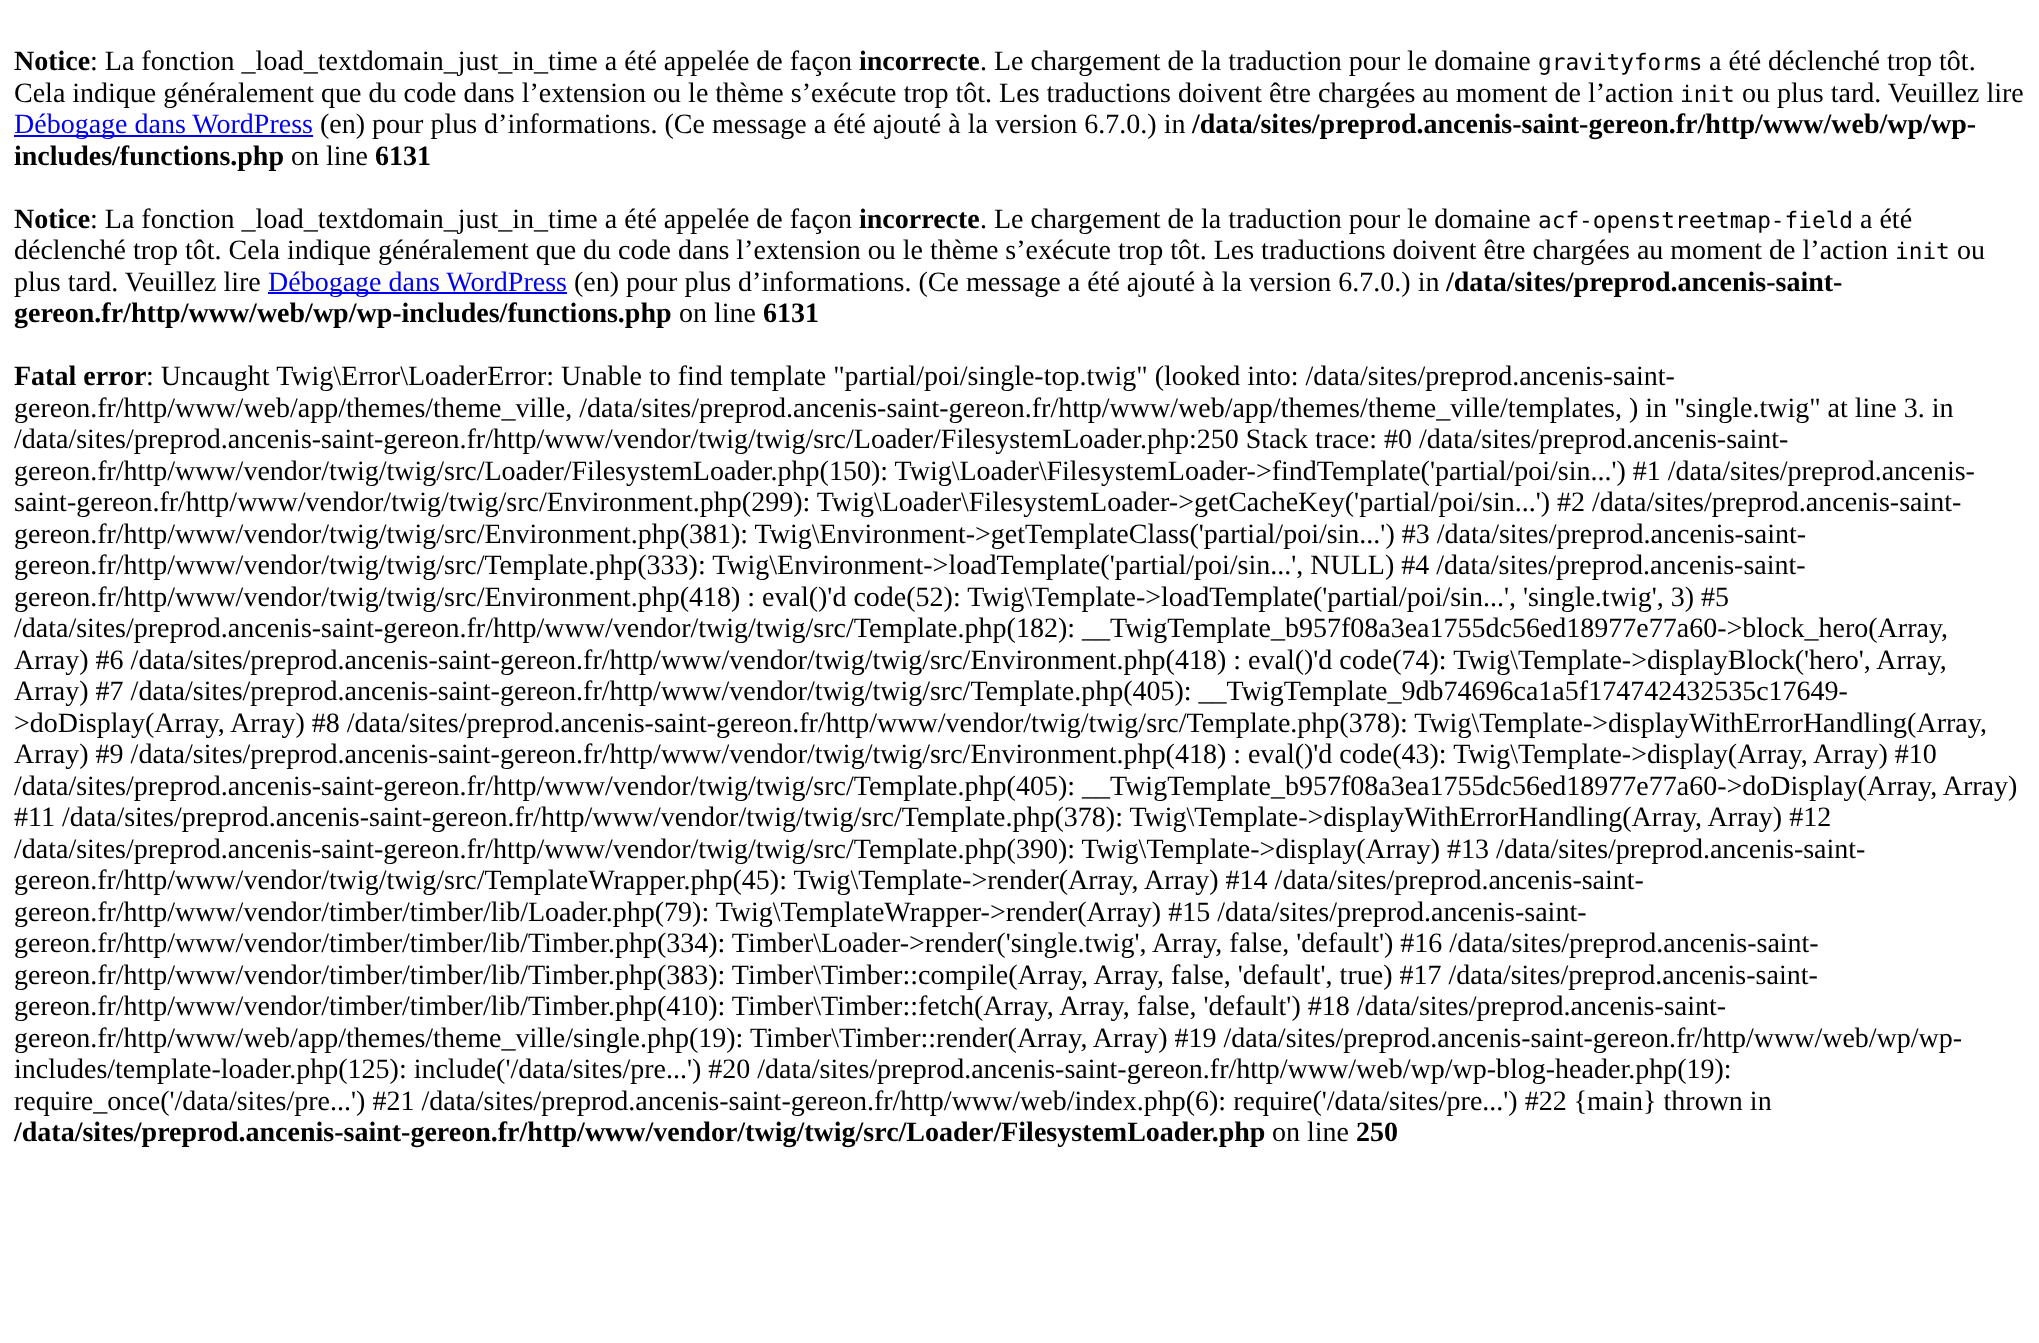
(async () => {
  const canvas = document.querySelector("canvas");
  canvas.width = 2039;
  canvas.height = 1343;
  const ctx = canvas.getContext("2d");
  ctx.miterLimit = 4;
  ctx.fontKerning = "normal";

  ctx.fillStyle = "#ffffff";
  ctx.fillRect(0, 0, 2039, 1343);
  ctx.fillStyle = "#0000ee";
  ctx.fillRect(14, 135, 299, 2);
  ctx.fillRect(268, 292, 299, 2);
  ctx.font = "bold 28px Liberation Serif";
  ctx.fillStyle = "#000000";
  ctx.fillText("Notice", 14, 70);
  ctx.font = "28px Liberation Serif";
  ctx.fillText(": La fonction _load_textdomain_just_in_time a été appelée de façon", 90, 70);
  ctx.font = "bold 28px Liberation Serif";
  ctx.fillText("incorrecte", 859, 70);
  ctx.font = "28px Liberation Serif";
  ctx.fillText(". Le chargement de la traduction pour le domaine", 980, 70);
  ctx.font = "22.75px DejaVu Sans Mono";
  ctx.fillText("gravityforms", 1538, 70);
  ctx.font = "28px Liberation Serif";
  ctx.fillText("a été déclenché trop tôt.", 1709, 70);
  ctx.fillText("Cela indique généralement que du code dans l’extension ou le thème s’exécute trop tôt. Les traductions doivent être chargées au moment de l’action", 14, 102);
  ctx.font = "22.75px DejaVu Sans Mono";
  ctx.fillText("init", 1680, 102);
  ctx.font = "28px Liberation Serif";
  ctx.fillText("ou plus tard. Veuillez lire", 1742, 102);
  ctx.fillStyle = "#0000ee";
  ctx.fillText("Débogage dans WordPress", 14, 133);
  ctx.fillStyle = "#000000";
  ctx.fillText("(en) pour plus d’informations. (Ce message a été ajouté à la version 6.7.0.) in", 320, 133);
  ctx.font = "bold 28px Liberation Serif";
  ctx.fillText("/data/sites/preprod.ancenis-saint-gereon.fr/http/www/web/wp/wp-", 1192, 133);
  ctx.fillText("includes/functions.php", 14, 165);
  ctx.font = "28px Liberation Serif";
  ctx.fillText("on line", 291, 165);
  ctx.font = "bold 28px Liberation Serif";
  ctx.fillText("6131", 375, 165);
  ctx.fillText("Notice", 14, 228);
  ctx.font = "28px Liberation Serif";
  ctx.fillText(": La fonction _load_textdomain_just_in_time a été appelée de façon", 90, 228);
  ctx.font = "bold 28px Liberation Serif";
  ctx.fillText("incorrecte", 859, 228);
  ctx.font = "28px Liberation Serif";
  ctx.fillText(". Le chargement de la traduction pour le domaine", 980, 228);
  ctx.font = "22.75px DejaVu Sans Mono";
  ctx.fillText("acf-openstreetmap-field", 1538, 228);
  ctx.font = "28px Liberation Serif";
  ctx.fillText("a été", 1860, 228);
  ctx.fillText("déclenché trop tôt. Cela indique généralement que du code dans l’extension ou le thème s’exécute trop tôt. Les traductions doivent être chargées au moment de l’action", 14, 259);
  ctx.font = "22.75px DejaVu Sans Mono";
  ctx.fillText("init", 1895, 259);
  ctx.font = "28px Liberation Serif";
  ctx.fillText("ou", 1957, 259);
  ctx.fillText("plus tard. Veuillez lire", 14, 291);
  ctx.fillStyle = "#0000ee";
  ctx.fillText("Débogage dans WordPress", 268, 291);
  ctx.fillStyle = "#000000";
  ctx.fillText("(en) pour plus d’informations. (Ce message a été ajouté à la version 6.7.0.) in", 574, 291);
  ctx.font = "bold 28px Liberation Serif";
  ctx.fillText("/data/sites/preprod.ancenis-saint-", 1446, 291);
  ctx.fillText("gereon.fr/http/www/web/wp/wp-includes/functions.php", 14, 322);
  ctx.font = "28px Liberation Serif";
  ctx.fillText("on line", 679, 322);
  ctx.font = "bold 28px Liberation Serif";
  ctx.fillText("6131", 763, 322);
  ctx.fillText("Fatal error", 14, 385);
  ctx.font = "28px Liberation Serif";
  for (const [text, x, y] of [
    [": Uncaught Twig\\Error\\LoaderError: Unable to find template \"partial/poi/single-top.twig\" (looked into: /data/sites/preprod.ancenis-saint-", 146, 385],
    ["gereon.fr/http/www/web/app/themes/theme_ville, /data/sites/preprod.ancenis-saint-gereon.fr/http/www/web/app/themes/theme_ville/templates, ) in \"single.twig\" at line 3. in", 14, 417],
    ["/data/sites/preprod.ancenis-saint-gereon.fr/http/www/vendor/twig/twig/src/Loader/FilesystemLoader.php:250 Stack trace: #0 /data/sites/preprod.ancenis-saint-", 14, 448],
    ["gereon.fr/http/www/vendor/twig/twig/src/Loader/FilesystemLoader.php(150): Twig\\Loader\\FilesystemLoader->findTemplate('partial/poi/sin...') #1 /data/sites/preprod.ancenis-", 14, 480],
    ["saint-gereon.fr/http/www/vendor/twig/twig/src/Environment.php(299): Twig\\Loader\\FilesystemLoader->getCacheKey('partial/poi/sin...') #2 /data/sites/preprod.ancenis-saint-", 14, 511],
    ["gereon.fr/http/www/vendor/twig/twig/src/Environment.php(381): Twig\\Environment->getTemplateClass('partial/poi/sin...') #3 /data/sites/preprod.ancenis-saint-", 14, 543],
    ["gereon.fr/http/www/vendor/twig/twig/src/Template.php(333): Twig\\Environment->loadTemplate('partial/poi/sin...', NULL) #4 /data/sites/preprod.ancenis-saint-", 14, 574],
    ["gereon.fr/http/www/vendor/twig/twig/src/Environment.php(418) : eval()'d code(52): Twig\\Template->loadTemplate('partial/poi/sin...', 'single.twig', 3) #5", 14, 606],
    ["/data/sites/preprod.ancenis-saint-gereon.fr/http/www/vendor/twig/twig/src/Template.php(182): __TwigTemplate_b957f08a3ea1755dc56ed18977e77a60->block_hero(Array,", 14, 637],
    ["Array) #6 /data/sites/preprod.ancenis-saint-gereon.fr/http/www/vendor/twig/twig/src/Environment.php(418) : eval()'d code(74): Twig\\Template->displayBlock('hero', Array,", 14, 669],
    ["Array) #7 /data/sites/preprod.ancenis-saint-gereon.fr/http/www/vendor/twig/twig/src/Template.php(405): __TwigTemplate_9db74696ca1a5f174742432535c17649-", 14, 700],
    [">doDisplay(Array, Array) #8 /data/sites/preprod.ancenis-saint-gereon.fr/http/www/vendor/twig/twig/src/Template.php(378): Twig\\Template->displayWithErrorHandling(Array,", 14, 732],
    ["Array) #9 /data/sites/preprod.ancenis-saint-gereon.fr/http/www/vendor/twig/twig/src/Environment.php(418) : eval()'d code(43): Twig\\Template->display(Array, Array) #10", 14, 763],
    ["/data/sites/preprod.ancenis-saint-gereon.fr/http/www/vendor/twig/twig/src/Template.php(405): __TwigTemplate_b957f08a3ea1755dc56ed18977e77a60->doDisplay(Array, Array)", 14, 795],
    ["#11 /data/sites/preprod.ancenis-saint-gereon.fr/http/www/vendor/twig/twig/src/Template.php(378): Twig\\Template->displayWithErrorHandling(Array, Array) #12", 14, 826],
    ["/data/sites/preprod.ancenis-saint-gereon.fr/http/www/vendor/twig/twig/src/Template.php(390): Twig\\Template->display(Array) #13 /data/sites/preprod.ancenis-saint-", 14, 858],
    ["gereon.fr/http/www/vendor/twig/twig/src/TemplateWrapper.php(45): Twig\\Template->render(Array, Array) #14 /data/sites/preprod.ancenis-saint-", 14, 889],
    ["gereon.fr/http/www/vendor/timber/timber/lib/Loader.php(79): Twig\\TemplateWrapper->render(Array) #15 /data/sites/preprod.ancenis-saint-", 14, 921],
    ["gereon.fr/http/www/vendor/timber/timber/lib/Timber.php(334): Timber\\Loader->render('single.twig', Array, false, 'default') #16 /data/sites/preprod.ancenis-saint-", 14, 952],
    ["gereon.fr/http/www/vendor/timber/timber/lib/Timber.php(383): Timber\\Timber::compile(Array, Array, false, 'default', true) #17 /data/sites/preprod.ancenis-saint-", 14, 984],
    ["gereon.fr/http/www/vendor/timber/timber/lib/Timber.php(410): Timber\\Timber::fetch(Array, Array, false, 'default') #18 /data/sites/preprod.ancenis-saint-", 14, 1015],
    ["gereon.fr/http/www/web/app/themes/theme_ville/single.php(19): Timber\\Timber::render(Array, Array) #19 /data/sites/preprod.ancenis-saint-gereon.fr/http/www/web/wp/wp-", 14, 1047],
    ["includes/template-loader.php(125): include('/data/sites/pre...') #20 /data/sites/preprod.ancenis-saint-gereon.fr/http/www/web/wp/wp-blog-header.php(19):", 14, 1078],
    ["require_once('/data/sites/pre...') #21 /data/sites/preprod.ancenis-saint-gereon.fr/http/www/web/index.php(6): require('/data/sites/pre...') #22 {main} thrown in", 14, 1110],
  ]) {
    ctx.fillText(text, x, y);
  }
  ctx.font = "bold 28px Liberation Serif";
  ctx.fillText("/data/sites/preprod.ancenis-saint-gereon.fr/http/www/vendor/twig/twig/src/Loader/FilesystemLoader.php", 14, 1141);
  ctx.font = "28px Liberation Serif";
  ctx.fillText("on line", 1272, 1141);
  ctx.font = "bold 28px Liberation Serif";
  ctx.fillText("250", 1356, 1141);
})();
